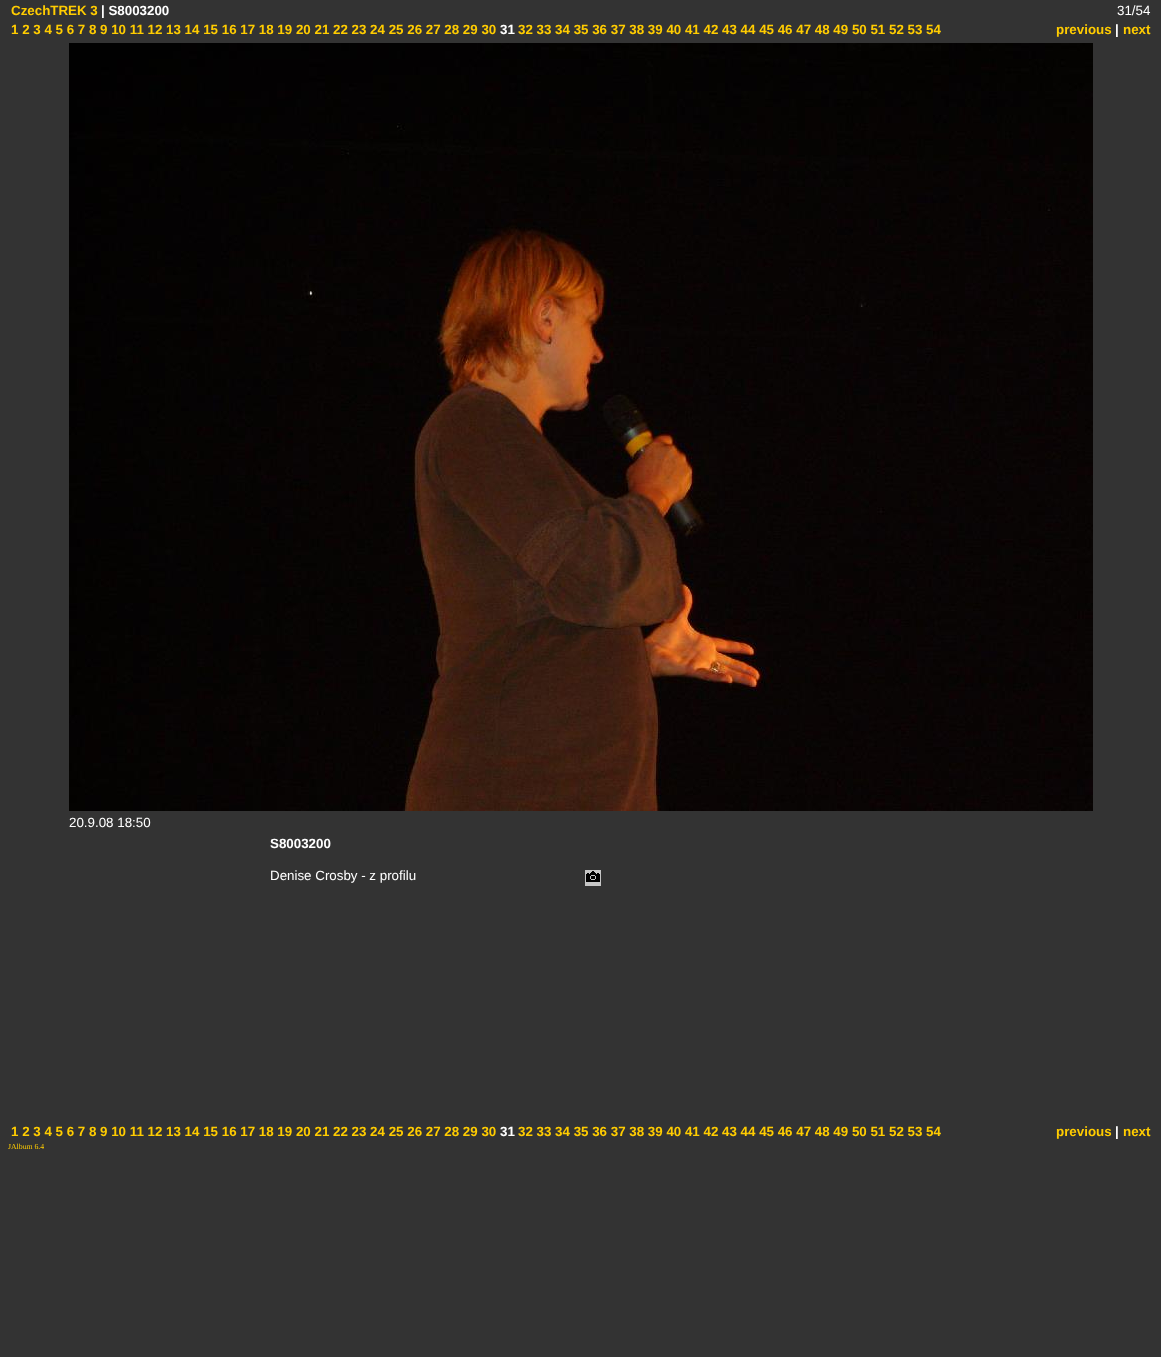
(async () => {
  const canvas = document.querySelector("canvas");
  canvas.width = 1161;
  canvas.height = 1357;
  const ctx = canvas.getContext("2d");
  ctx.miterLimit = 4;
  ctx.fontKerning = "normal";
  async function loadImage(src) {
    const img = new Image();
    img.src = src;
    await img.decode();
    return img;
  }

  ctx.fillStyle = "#333333";
  ctx.fillRect(0, 0, 1161, 1357);
  ctx.drawImage(await loadImage("img/1.png"), 69, 43, 1024, 768);
  ctx.drawImage(await loadImage("img/2.png"), 585, 870, 16, 16);
  ctx.font = "bold 13.35px Liberation Sans";
  ctx.fillStyle = "#ffcc00";
  ctx.fillText("CzechTREK 3", 11, 15);
  ctx.fillStyle = "#ffffff";
  ctx.fillText("| S8003200", 101, 15);
  ctx.font = "13.35px Liberation Sans";
  ctx.fillText("31/54", 1117, 15);
  ctx.font = "bold 13.35px Liberation Sans";
  ctx.fillStyle = "#ffcc00";
  ctx.fillText("1 2 3 4 5 6 7 8 9 10 11 12 13 14 15 16 17 18 19 20 21 22 23 24 25 26 27 28 29 30", 11, 34);
  ctx.fillStyle = "#ffffff";
  ctx.fillText("31", 500, 34);
  ctx.fillStyle = "#ffcc00";
  ctx.fillText("32 33 34 35 36 37 38 39 40 41 42 43 44 45 46 47 48 49 50 51 52 53 54", 518, 34);
  ctx.fillText("previous", 1056, 34);
  ctx.fillStyle = "#ffffff";
  ctx.fillText("|", 1115, 34);
  ctx.fillStyle = "#ffcc00";
  ctx.fillText("next", 1123, 34);
  ctx.font = "13.35px Liberation Sans";
  ctx.fillStyle = "#ffffff";
  ctx.fillText("20.9.08 18:50", 69, 827);
  ctx.font = "bold 13.35px Liberation Sans";
  ctx.fillText("S8003200", 270, 848);
  ctx.font = "13.35px Liberation Sans";
  ctx.fillText("Denise Crosby - z profilu", 270, 880);
  ctx.font = "bold 13.35px Liberation Sans";
  ctx.fillStyle = "#ffcc00";
  ctx.fillText("1 2 3 4 5 6 7 8 9 10 11 12 13 14 15 16 17 18 19 20 21 22 23 24 25 26 27 28 29 30", 11, 1136);
  ctx.fillStyle = "#ffffff";
  ctx.fillText("31", 500, 1136);
  ctx.fillStyle = "#ffcc00";
  ctx.fillText("32 33 34 35 36 37 38 39 40 41 42 43 44 45 46 47 48 49 50 51 52 53 54", 518, 1136);
  ctx.fillText("previous", 1056, 1136);
  ctx.fillStyle = "#ffffff";
  ctx.fillText("|", 1115, 1136);
  ctx.fillStyle = "#ffcc00";
  ctx.fillText("next", 1123, 1136);
  ctx.font = "7.75px Liberation Serif";
  ctx.fillText("JAlbum 6.4", 8, 1149);
})();
